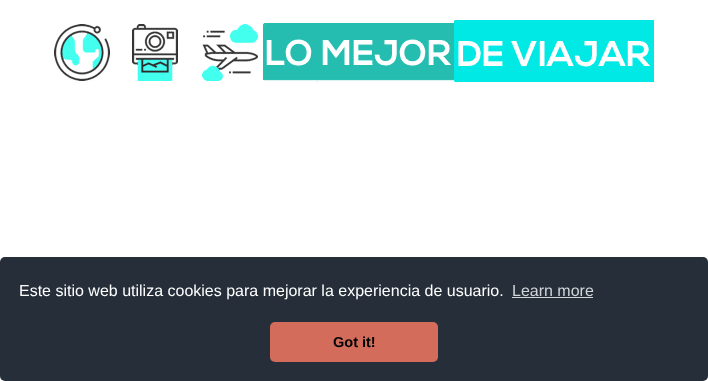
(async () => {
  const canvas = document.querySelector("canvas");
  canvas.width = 708;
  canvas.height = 381;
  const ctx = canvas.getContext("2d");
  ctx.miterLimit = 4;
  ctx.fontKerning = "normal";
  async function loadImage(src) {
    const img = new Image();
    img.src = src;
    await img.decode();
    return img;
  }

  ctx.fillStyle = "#ffffff";
  ctx.fillRect(0, 0, 708, 381);
  ctx.drawImage(await loadImage("img/1.png"), 54, 20, 600, 63);
  ctx.fillStyle = "#252e39";
  ctx.beginPath();
  ctx.roundRect(0, 257, 708, 124, 5);
  ctx.fill();
  ctx.fillStyle = "#d3d5d7";
  ctx.fillRect(512, 297, 81, 1);
  ctx.fillStyle = "#d46c5b";
  ctx.beginPath();
  ctx.roundRect(270, 322, 168, 40, 5);
  ctx.fill();
  ctx.font = "16px Liberation Sans";
  ctx.fillStyle = "#ffffff";
  ctx.fillText("Este sitio web utiliza cookies para mejorar la experiencia de usuario.", 19, 296);
  ctx.fillStyle = "#d3d5d7";
  ctx.fillText("Learn more", 512, 296);
  ctx.font = "bold 14.5px Liberation Sans";
  ctx.fillStyle = "#000000";
  ctx.fillText("Got it!", 333, 347);
})();
